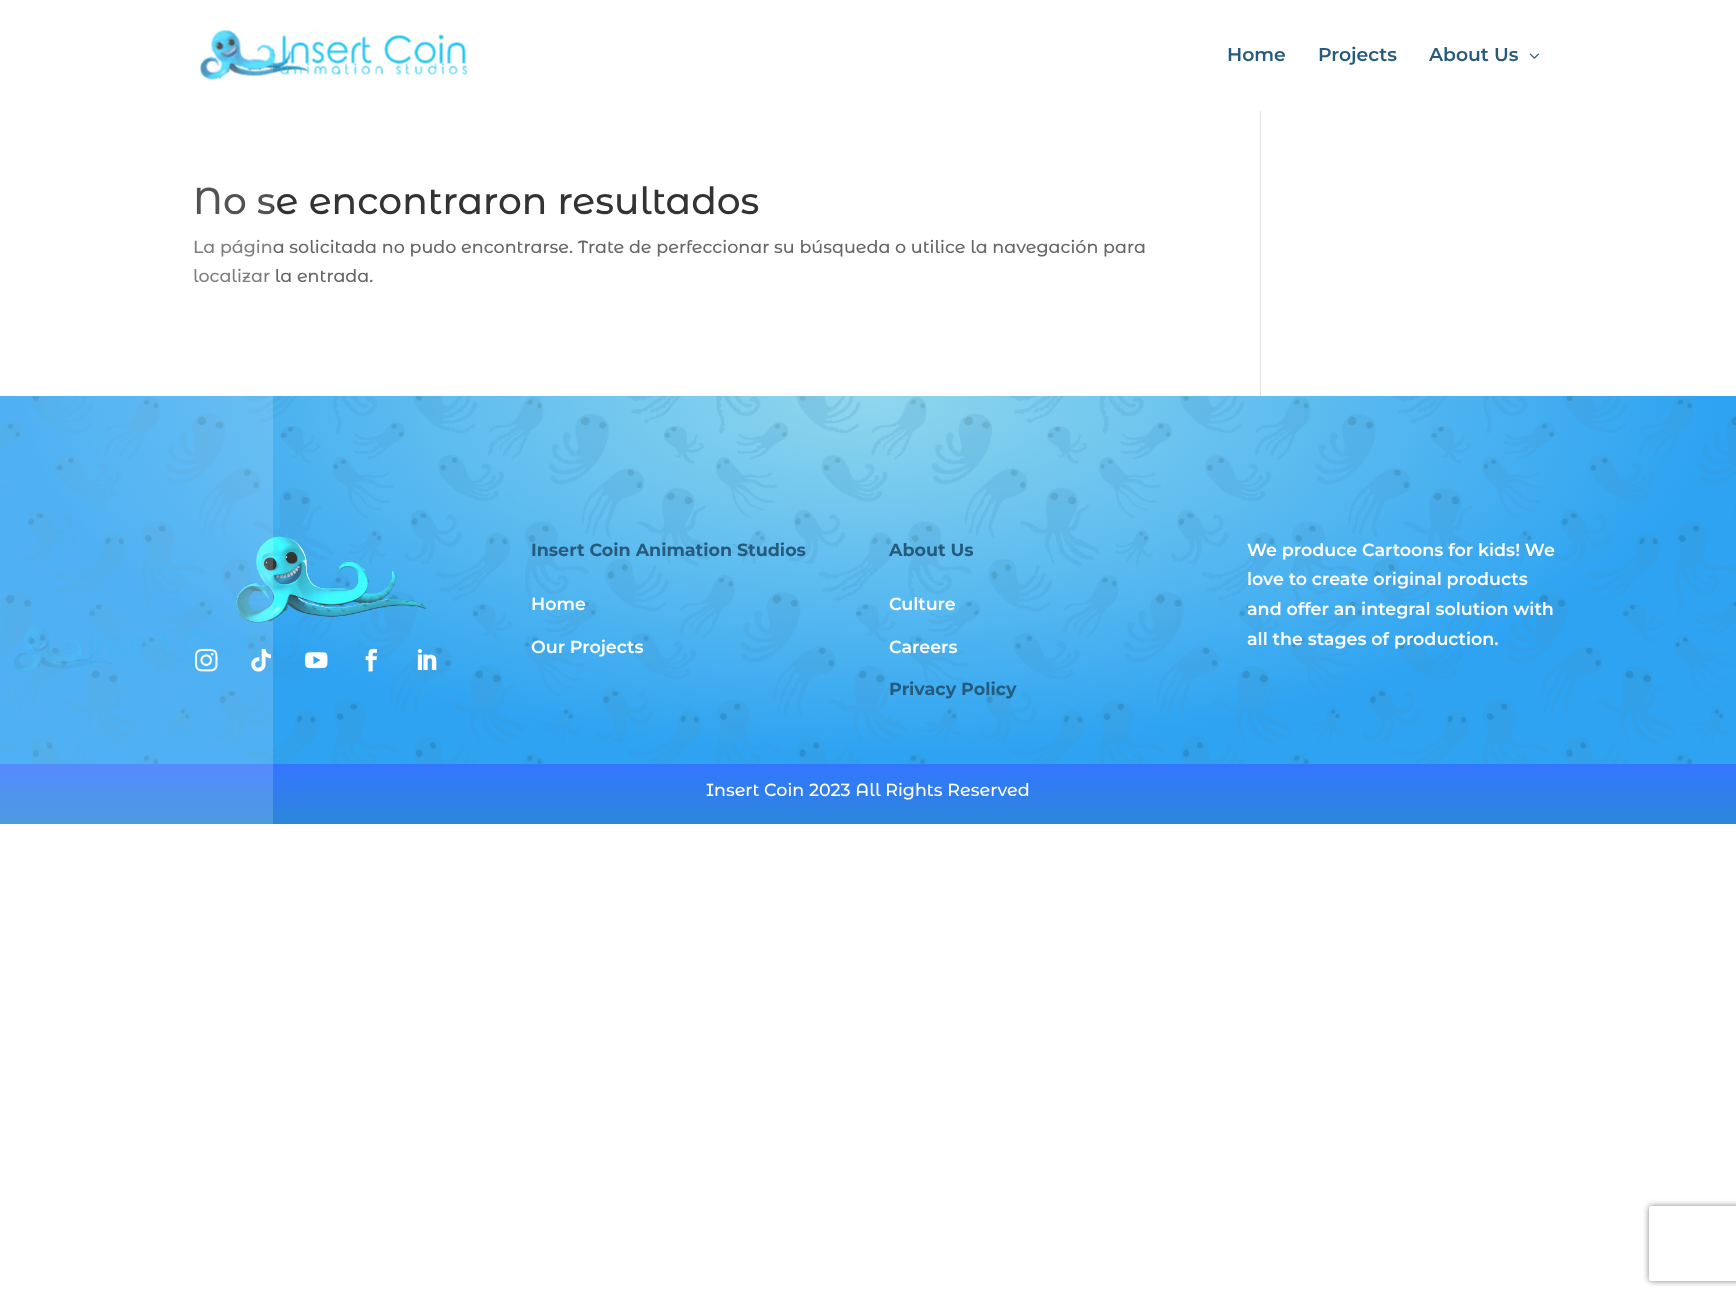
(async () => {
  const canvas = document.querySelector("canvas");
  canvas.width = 1736;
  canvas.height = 1298;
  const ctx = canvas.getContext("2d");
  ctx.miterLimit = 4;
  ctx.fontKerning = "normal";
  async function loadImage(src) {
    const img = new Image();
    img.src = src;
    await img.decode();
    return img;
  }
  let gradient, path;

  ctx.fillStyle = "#ffffff";
  ctx.fillRect(0, 0, 1736, 1298);
  ctx.fillStyle = "#e2e2e2";
  ctx.fillRect(1260, 110, 1, 286);
  ctx.fillStyle = "#ffffff";
  ctx.fillRect(1260, 110, 1, 1);
  ctx.drawImage(await loadImage("img/2.png"), 199, 29, 269, 51);
  ctx.drawImage(await loadImage("img/3.png"), 1529, 53, 10, 6);
  gradient = ctx.createRadialGradient(868, 935.17, 0, 868, 935.17, 1228);
  gradient.addColorStop(0, "#90d7ed");
  gradient.addColorStop(0.69, "#2ea3f2");
  ctx.fillStyle = gradient;
  ctx.beginPath();
  ctx.rect(0, 396, 1736, 368);
  ctx.save();
  ctx.clip();
  ctx.scale(1, 520 / 1228);
  ctx.fillRect(0, 0, 1736, 3066);
  ctx.restore();
  ctx.drawImage(await loadImage("img/4.png"), 0, 396, 1736, 368);
  ctx.drawImage(await loadImage("img/5.png"), 236, 536, 191, 87);
  ctx.drawImage(await loadImage("img/6.png"), 195, 648, 23, 24);
  ctx.drawImage(await loadImage("img/7.png"), 251, 649, 20, 23);
  ctx.drawImage(await loadImage("img/8.png"), 305, 652, 23, 17);
  ctx.drawImage(await loadImage("img/9.png"), 365, 648, 12, 24);
  ctx.drawImage(await loadImage("img/10.png"), 417, 648, 20, 22);
  gradient = ctx.createLinearGradient(868, 824, 868, 764);
  gradient.addColorStop(0, "#2b87da");
  gradient.addColorStop(1, "#3575ff");
  ctx.fillStyle = gradient;
  ctx.fillRect(0, 764, 1736, 60);
  ctx.save();
  path = new Path2D("M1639 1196H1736V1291H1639ZM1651.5 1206H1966.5C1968 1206 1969 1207 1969 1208.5V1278.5C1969 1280 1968 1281 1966.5 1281H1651.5C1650 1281 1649 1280 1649 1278.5V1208.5C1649 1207 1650 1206 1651.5 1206Z");
  ctx.clip(path, "evenodd");
  ctx.fillStyle = "#808080";
  ctx.filter = "blur(3px)";
  ctx.beginPath();
  ctx.roundRect(1649, 1206, 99, 75, 2.5);
  ctx.fill();
  ctx.filter = "none";
  ctx.restore();
  ctx.font = "600 18.75px Montserrat";
  ctx.fillStyle = "#275b7d";
  for (const [text, x, y] of [
    ["Home", 1227, 61],
    ["Projects", 1318, 61],
    ["About Us", 1429, 61],
  ]) {
    ctx.fillText(text, x, y);
  }
  ctx.font = "500 37.5px Montserrat Alternates";
  ctx.fillStyle = "#333333";
  ctx.fillText("No se encontraron resultados", 193, 214);
  ctx.font = "500 17.5px Montserrat Alternates";
  ctx.fillStyle = "#666666";
  ctx.fillText("La página solicitada no pudo encontrarse. Trate de perfeccionar su búsqueda o utilice la navegación para", 193, 253);
  ctx.fillText("localizar la entrada.", 193, 282);
  ctx.fillStyle = "rgba(255, 255, 255, 0.16)";
  ctx.fillRect(0, 30, 273, 794);
  ctx.drawImage(await loadImage("img/1.png"), 14, 627, 244, 45);
  ctx.font = "bold 17.5px Montserrat";
  ctx.fillStyle = "#275b7d";
  ctx.fillText("Insert Coin Animation Studios", 531, 556);
  ctx.font = "600 17.5px Montserrat";
  ctx.fillStyle = "#ffffff";
  ctx.fillText("Home", 531, 610);
  ctx.fillText("Our Projects", 531, 653);
  ctx.font = "bold 17.5px Montserrat";
  ctx.fillStyle = "#275b7d";
  ctx.fillText("About Us", 889, 556);
  ctx.font = "600 17.5px Montserrat";
  ctx.fillStyle = "#ffffff";
  ctx.fillText("Culture", 889, 610);
  ctx.fillText("Careers", 889, 653);
  ctx.font = "bold 17.5px Montserrat";
  ctx.fillStyle = "#275b7d";
  ctx.fillText("Privacy Policy", 889, 695);
  ctx.font = "600 17.5px Montserrat";
  ctx.fillStyle = "#ffffff";
  for (const [text, x, y] of [
    ["We produce Cartoons for kids! We", 1247, 556],
    ["love to create original products", 1247, 585],
    ["and offer an integral solution with", 1247, 615],
    ["all the stages of production.", 1247, 645],
  ]) {
    ctx.fillText(text, x, y);
  }
  ctx.font = "500 17.5px Montserrat Alternates";
  ctx.fillText("Insert Coin 2023 All Rights Reserved", 706, 796);
})();
